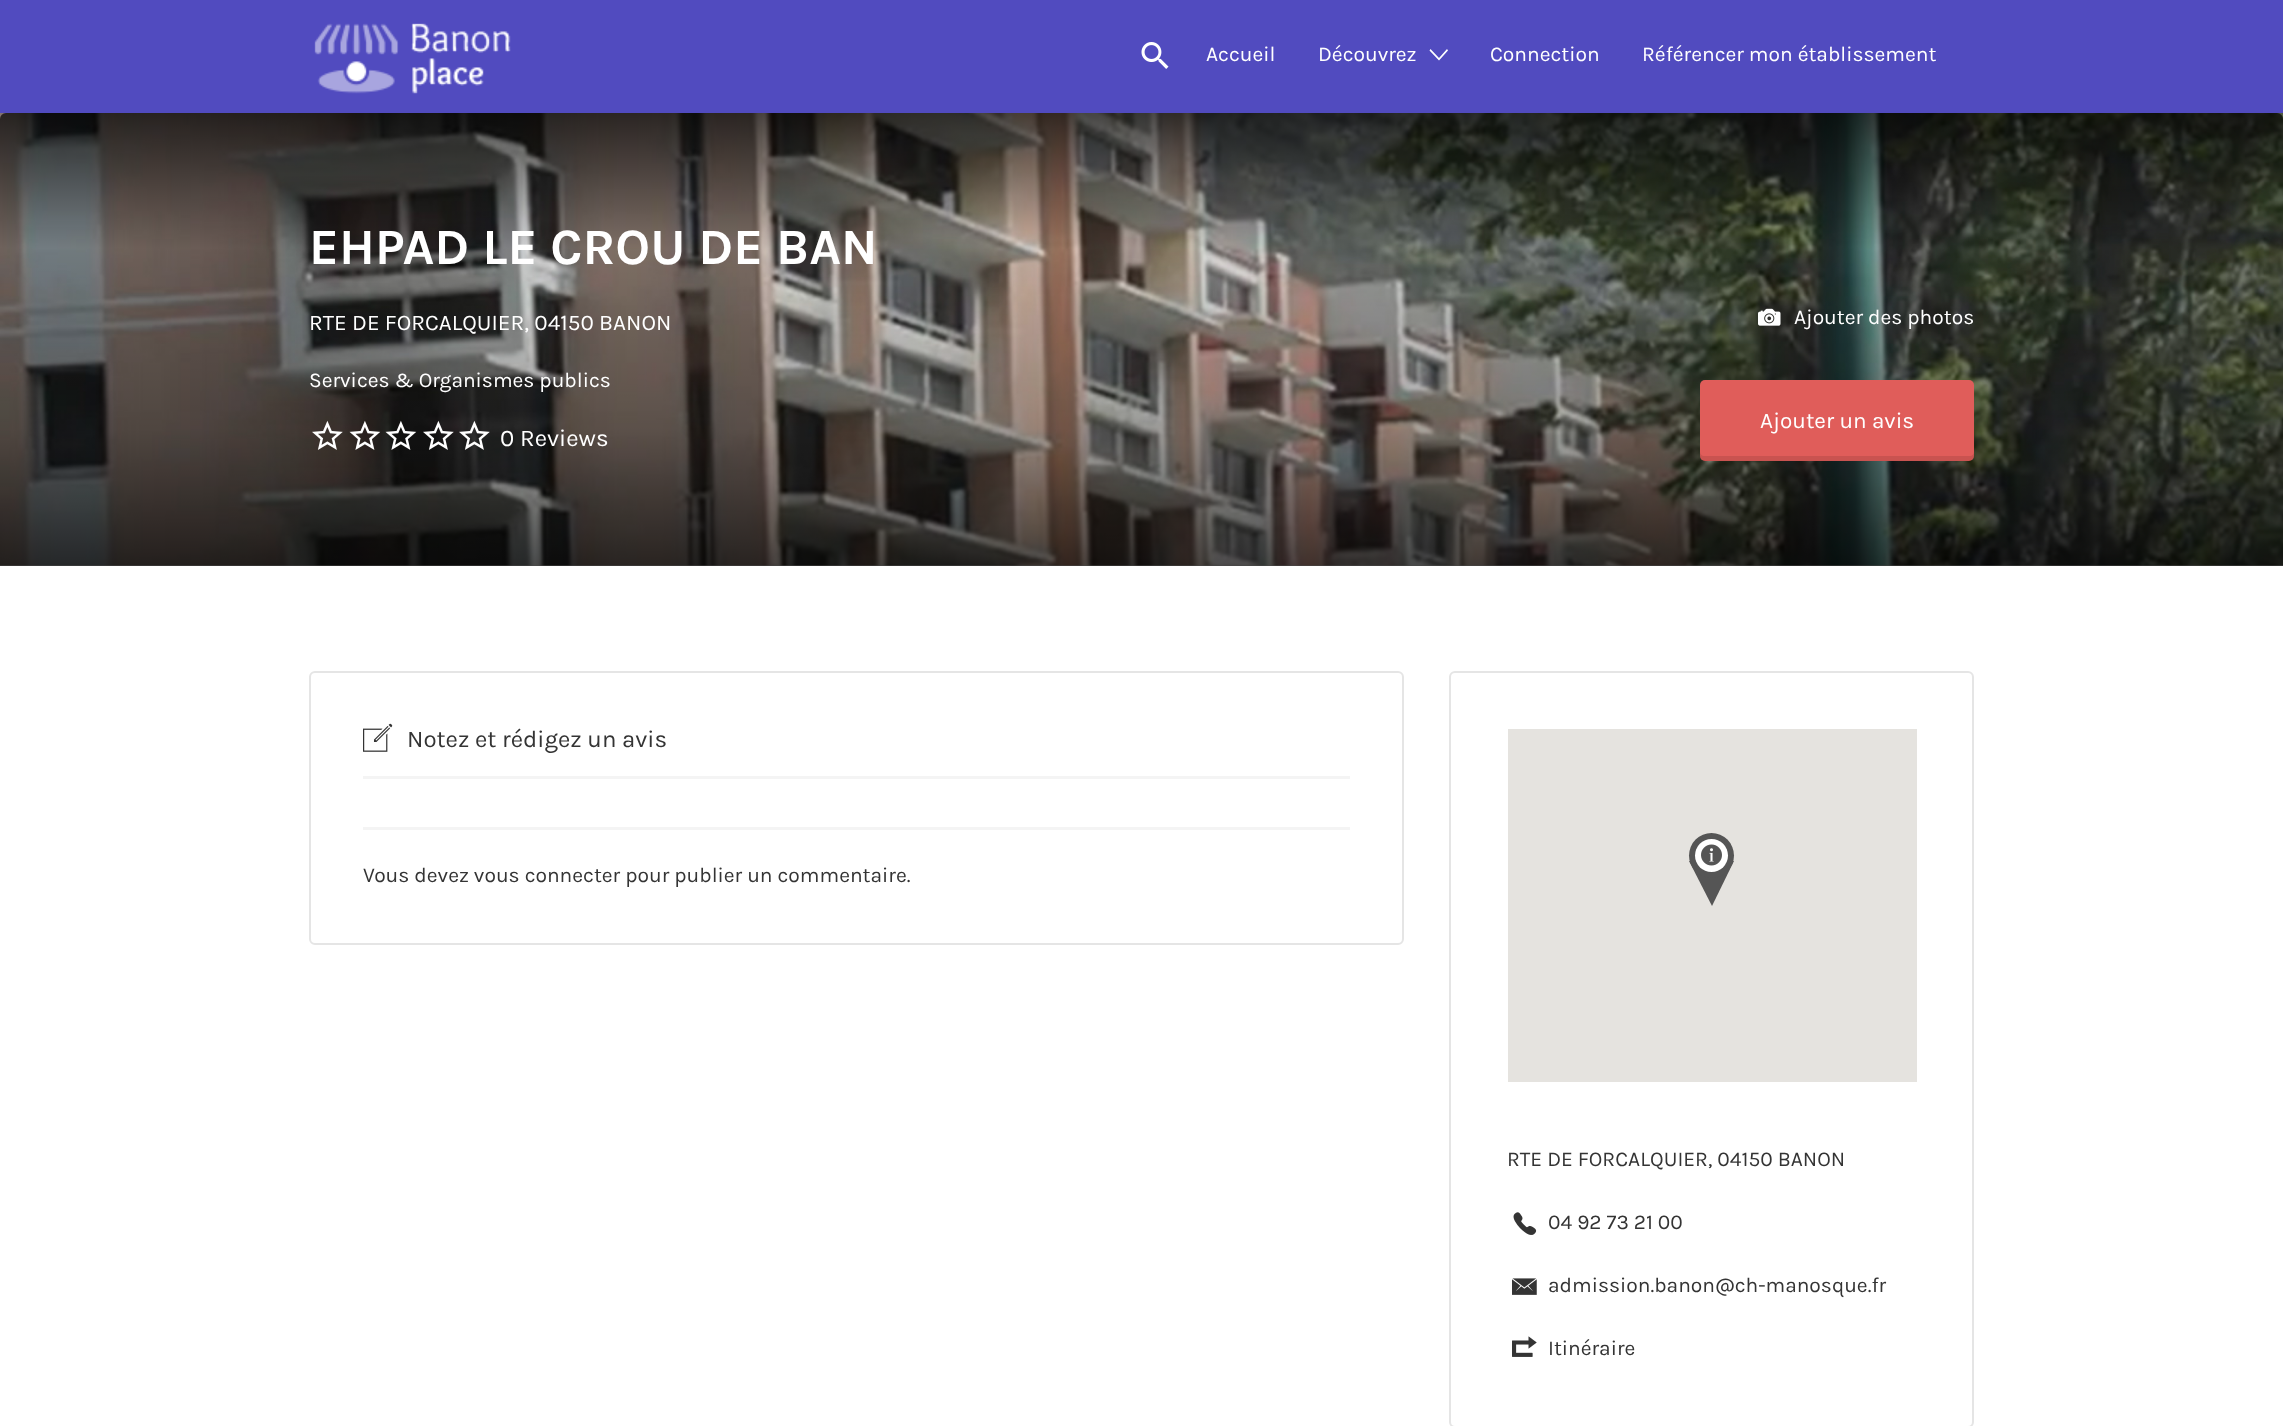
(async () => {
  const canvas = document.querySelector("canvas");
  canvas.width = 2283;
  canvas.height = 1426;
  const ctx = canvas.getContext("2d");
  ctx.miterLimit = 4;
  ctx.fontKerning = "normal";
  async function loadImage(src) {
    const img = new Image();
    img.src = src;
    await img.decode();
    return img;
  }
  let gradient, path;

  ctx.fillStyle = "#ffffff";
  ctx.fillRect(0, 0, 2283, 1426);
  ctx.fillStyle = "#514bbf";
  ctx.fillRect(0, 0, 2283, 113);
  ctx.drawImage(await loadImage("img/1.png"), 314, 23, 197, 71);
  ctx.drawImage(await loadImage("img/2.png"), 1141, 42, 28, 27);
  ctx.fillStyle = "#ffffff";
  path = new Path2D("M1447 49L1448 50.5L1439 60.5L1429.5 50.5L1430.5 49L1439 58Z");
  ctx.fill(path);
  ctx.fillStyle = "#f5f5f5";
  ctx.fillRect(0, 565, 2283, 1);
  ctx.drawImage(await loadImage("img/3.png"), 0, 113, 2283, 453);
  gradient = ctx.createLinearGradient(1142, 112, 1142, 566);
  gradient.addColorStop(0, "rgba(0, 0, 0, 0.7)");
  gradient.addColorStop(0.3, "rgba(0, 0, 0, 0.14)");
  gradient.addColorStop(0.7, "rgba(0, 0, 0, 0.35)");
  gradient.addColorStop(1, "rgba(0, 0, 0, 0.7)");
  ctx.fillStyle = gradient;
  ctx.beginPath();
  ctx.roundRect(0, 113, 2283, 453, [6, 6, 0, 0]);
  ctx.fill();
  ctx.drawImage(await loadImage("img/4.png"), 312, 420, 31, 30);
  ctx.drawImage(await loadImage("img/5.png"), 349, 420, 32, 30);
  ctx.drawImage(await loadImage("img/6.png"), 385, 420, 32, 30);
  ctx.drawImage(await loadImage("img/7.png"), 423, 420, 31, 30);
  ctx.drawImage(await loadImage("img/8.png"), 459, 420, 31, 30);
  ctx.drawImage(await loadImage("img/9.png"), 1758, 308, 23, 18);
  ctx.fillStyle = "#e05d5a";
  ctx.beginPath();
  ctx.roundRect(1700, 380, 274, 81, 5);
  ctx.fill();
  ctx.fillStyle = "rgba(0, 0, 0, 0.1)";
  path = new Path2D("M1700 452V456C1700 459 1702 461 1705 461H1969C1972 461 1974 459 1974 456V452C1974 454 1972 456 1970 456H1704C1702 456 1700 454 1700 452Z");
  ctx.fill(path);
  ctx.beginPath();
  ctx.roundRect(310, 672, 1093, 272, 5);
  ctx.strokeStyle = "#e5e5e5";
  ctx.lineWidth = 2;
  ctx.stroke();
  ctx.fillStyle = "#f4f4f4";
  ctx.fillRect(363, 776, 987, 3);
  ctx.drawImage(await loadImage("img/10.png"), 363, 723, 30, 29);
  ctx.fillRect(363, 827, 987, 3);
  ctx.beginPath();
  ctx.roundRect(1450, 672, 523, 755, 5);
  ctx.stroke();
  ctx.fillStyle = "#e5e3df";
  ctx.fillRect(1508, 729, 409, 353);
  ctx.fillStyle = "#555555";
  path = new Path2D("M1689 861H1734L1712 906Z");
  ctx.fill(path);
  ctx.beginPath();
  ctx.arc(1711.5, 855.5, 22.5, 0, Math.PI * 2);
  ctx.fill();
  ctx.fillStyle = "#ffffff";
  ctx.beginPath();
  ctx.arc(1711.5, 855.5, 16.5, 0, Math.PI * 2);
  ctx.fill();
  ctx.drawImage(await loadImage("img/11.png"), 1701, 844, 21, 22);
  ctx.drawImage(await loadImage("img/12.png"), 1513, 1212, 24, 23);
  ctx.drawImage(await loadImage("img/13.png"), 1512, 1278, 25, 17);
  ctx.drawImage(await loadImage("img/14.png"), 1512, 1336, 25, 21);
  ctx.font = "21px Karla";
  for (const [text, x, y] of [
    ["Accueil", 1206, 61],
    ["Découvrez", 1318, 61],
    ["Connection", 1490, 61],
    ["Référencer mon établissement", 1642, 61],
  ]) {
    ctx.fillText(text, x, y);
  }
  ctx.font = "bold 51px Karla";
  ctx.fillText("EHPAD LE CROU DE BAN", 309, 264);
  ctx.font = "22.5px Karla";
  ctx.fillText("RTE DE FORCALQUIER, 04150 BANON", 309, 330);
  ctx.font = "21px Karla";
  ctx.fillText("Services & Organismes publics", 309, 387);
  ctx.font = "24px Karla";
  ctx.fillText("0 Reviews", 500, 446);
  ctx.font = "21px Karla";
  ctx.fillText("Ajouter des photos", 1794, 324);
  ctx.font = "22.5px Karla";
  ctx.fillText("Ajouter un avis", 1760, 428);
  ctx.font = "24px Karla";
  ctx.fillStyle = "#343434";
  ctx.fillText("Notez et rédigez un avis", 407, 747);
  ctx.font = "21px Karla";
  for (const [text, x, y] of [
    ["Vous devez vous connecter pour publier un commentaire.", 363, 882],
    ["RTE DE FORCALQUIER, 04150 BANON", 1507, 1166],
    ["04 92 73 21 00", 1548, 1229],
    ["admission.banon@ch-manosque.fr", 1548, 1292],
    ["Itinéraire", 1548, 1355],
  ]) {
    ctx.fillText(text, x, y);
  }
})();
